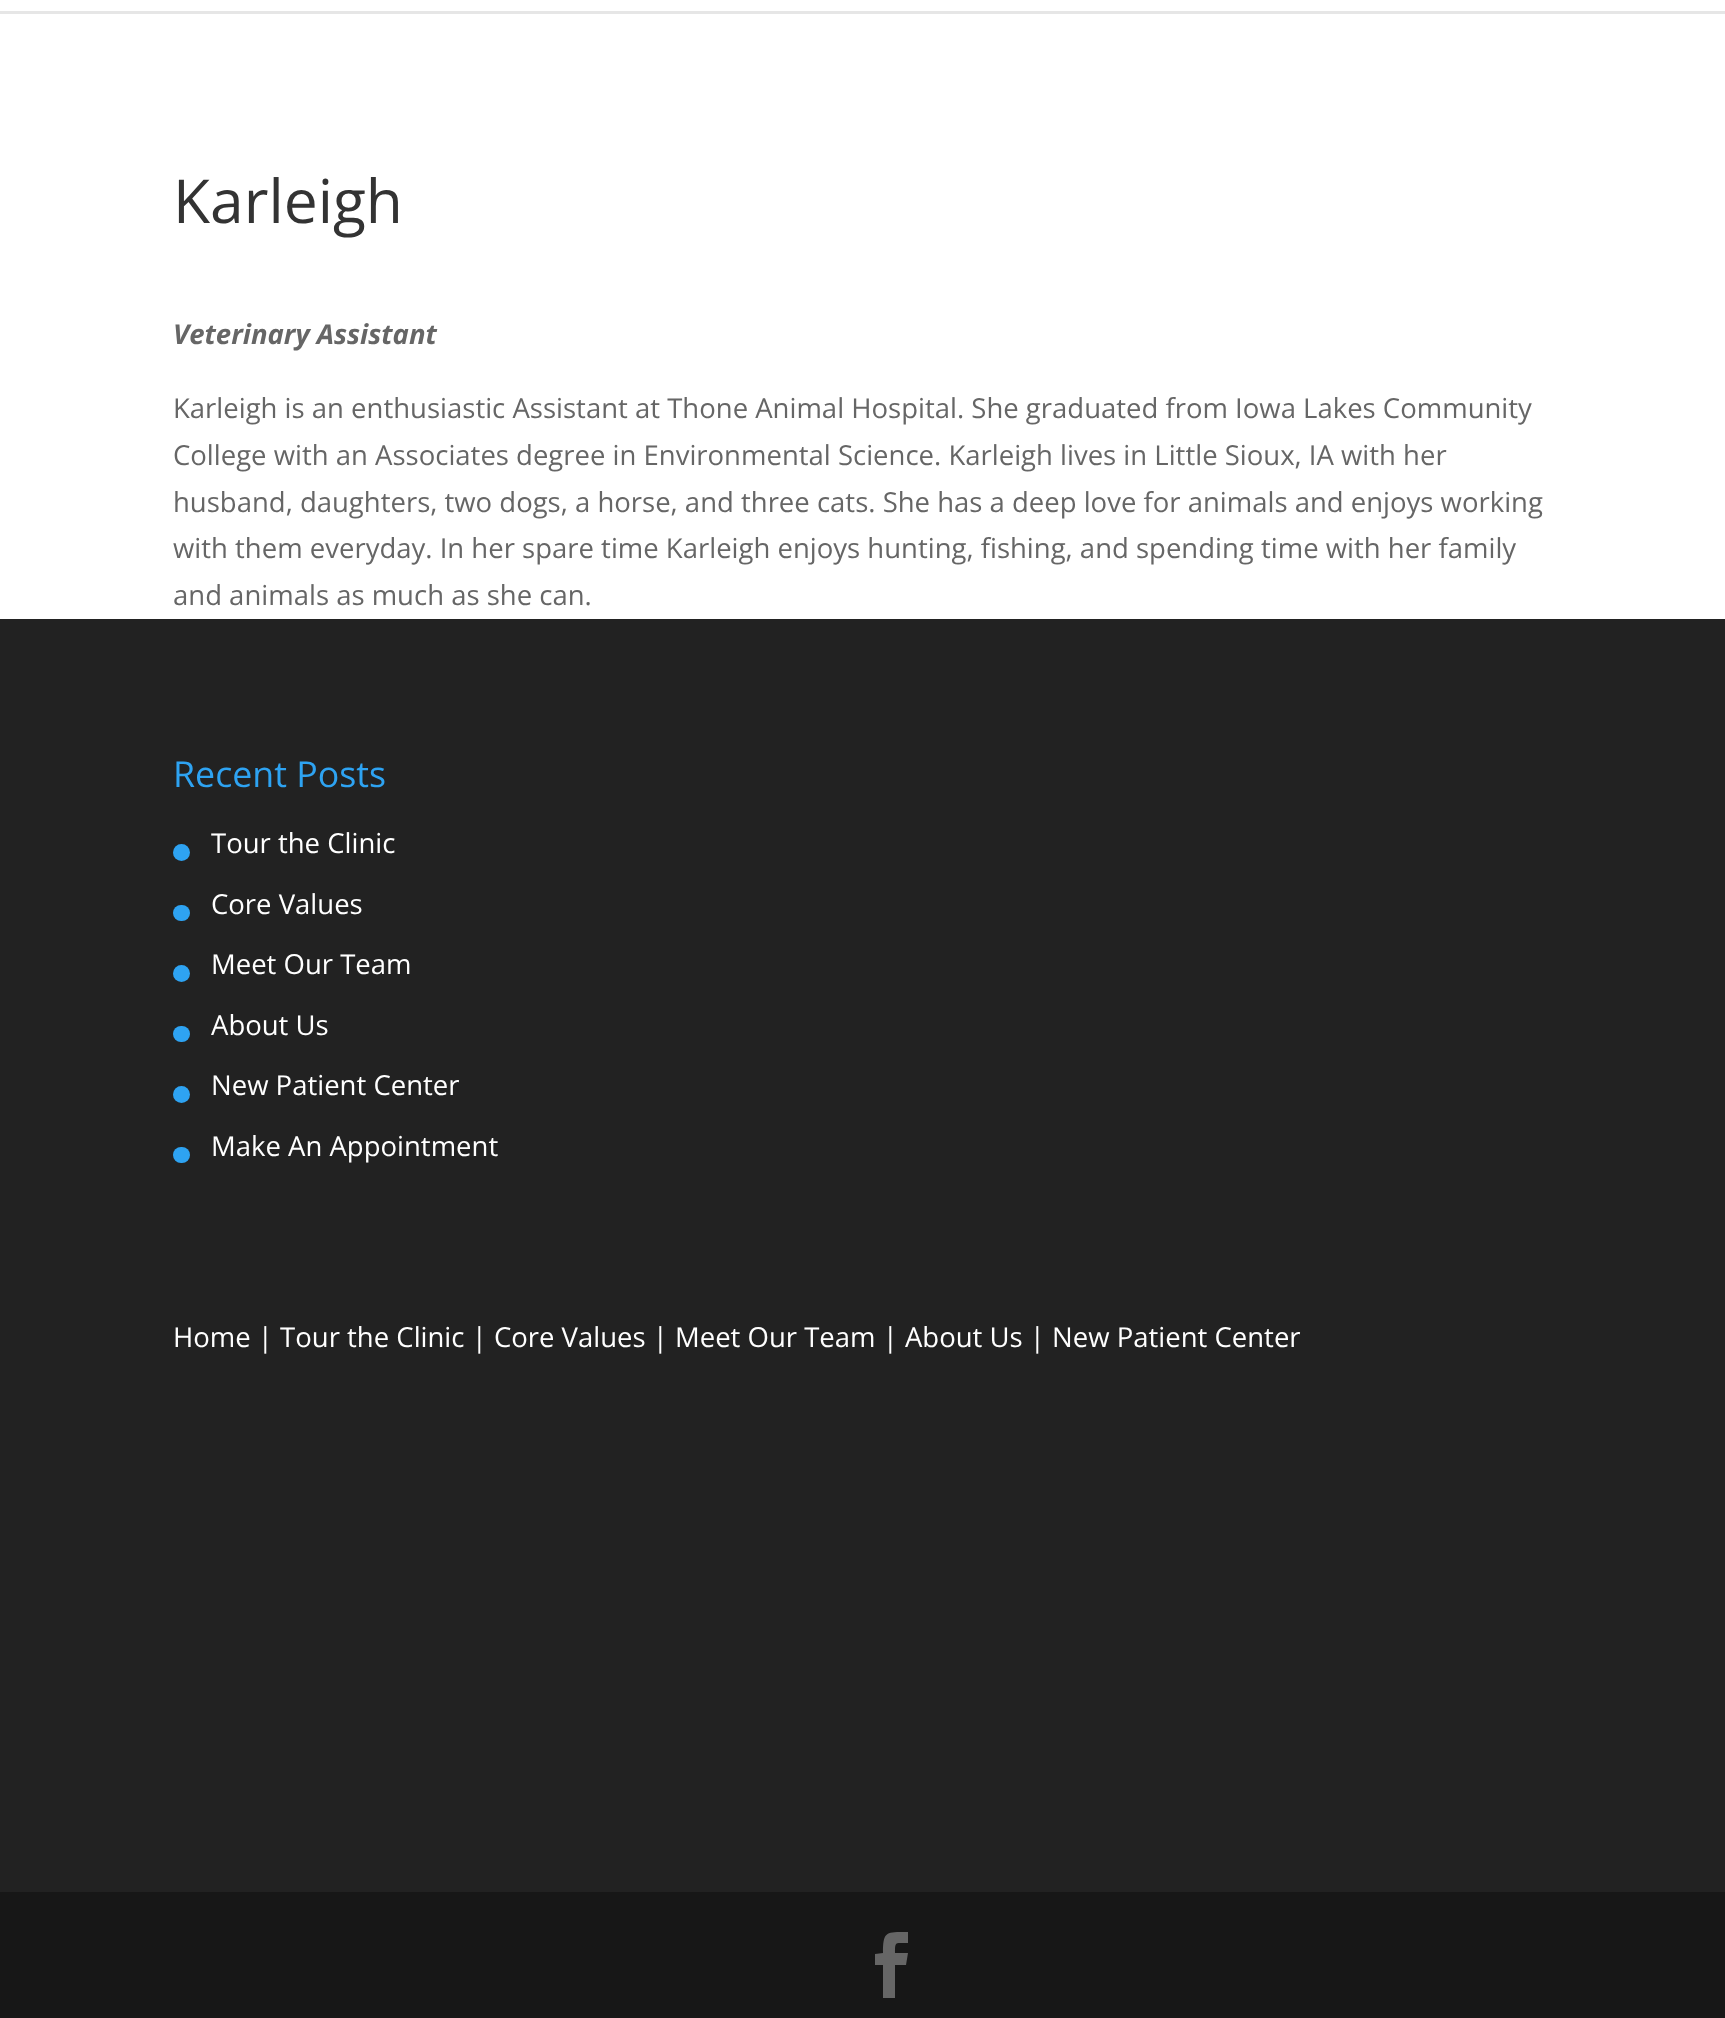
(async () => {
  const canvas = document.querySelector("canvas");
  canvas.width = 1725;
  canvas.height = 2018;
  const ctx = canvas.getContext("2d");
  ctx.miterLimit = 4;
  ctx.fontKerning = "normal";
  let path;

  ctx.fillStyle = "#ffffff";
  ctx.fillRect(0, 0, 1725, 2018);
  ctx.fillStyle = "#e6e6e6";
  ctx.fillRect(0, 11, 1725, 3);
  ctx.fillStyle = "#222222";
  ctx.fillRect(0, 619, 1725, 1273);
  ctx.fillStyle = "#2ea3f2";
  ctx.beginPath();
  ctx.arc(181.5, 852.5, 8.5, 0, Math.PI * 2);
  ctx.fill();
  ctx.beginPath();
  ctx.roundRect(173, 905, 17, 16, 8);
  ctx.fill();
  ctx.beginPath();
  ctx.arc(181.5, 973.5, 8.5, 0, Math.PI * 2);
  ctx.fill();
  ctx.beginPath();
  ctx.roundRect(173, 1026, 17, 16, 8);
  ctx.fill();
  ctx.beginPath();
  ctx.arc(181.5, 1094.5, 8.5, 0, Math.PI * 2);
  ctx.fill();
  ctx.beginPath();
  ctx.roundRect(173, 1147, 17, 16, 8);
  ctx.fill();
  ctx.fillStyle = "#171717";
  ctx.fillRect(0, 1892, 1725, 126);
  ctx.fillStyle = "#666666";
  path = new Path2D("M883 1998H895V1965H906L908 1953H895C895 1941 895 1943 908 1943V1932C886 1932 883 1931 883 1953L875 1954V1965H883Z");
  ctx.fill(path);
  ctx.font = "60.5px Open Sans";
  ctx.fillStyle = "#333333";
  ctx.fillText("Karleigh", 173, 223);
  ctx.font = "italic bold 27.5px Open Sans";
  ctx.fillStyle = "#666666";
  ctx.fillText("Veterinary Assistant", 173, 344);
  ctx.font = "27.5px Open Sans";
  for (const [text, x, y] of [
    ["Karleigh is an enthusiastic Assistant at Thone Animal Hospital. She graduated from Iowa Lakes Community", 173, 418],
    ["College with an Associates degree in Environmental Science. Karleigh lives in Little Sioux, IA with her", 173, 465],
    ["husband, daughters, two dogs, a horse, and three cats. She has a deep love for animals and enjoys working", 173, 512],
    ["with them everyday. In her spare time Karleigh enjoys hunting, fishing, and spending time with her family", 173, 558],
    ["and animals as much as she can.", 173, 605],
  ]) {
    ctx.fillText(text, x, y);
  }
  ctx.font = "35.75px Open Sans";
  ctx.fillStyle = "#2ea3f2";
  ctx.fillText("Recent Posts", 173, 787);
  ctx.font = "27.5px Open Sans";
  ctx.fillStyle = "#ffffff";
  for (const [text, x, y] of [
    ["Tour the Clinic", 211, 853],
    ["Core Values", 211, 914],
    ["Meet Our Team", 211, 974],
    ["About Us", 211, 1035],
    ["New Patient Center", 211, 1095],
    ["Make An Appointment", 211, 1156],
    ["Home | Tour the Clinic | Core Values | Meet Our Team | About Us | New Patient Center", 173, 1347],
  ]) {
    ctx.fillText(text, x, y);
  }
})();
